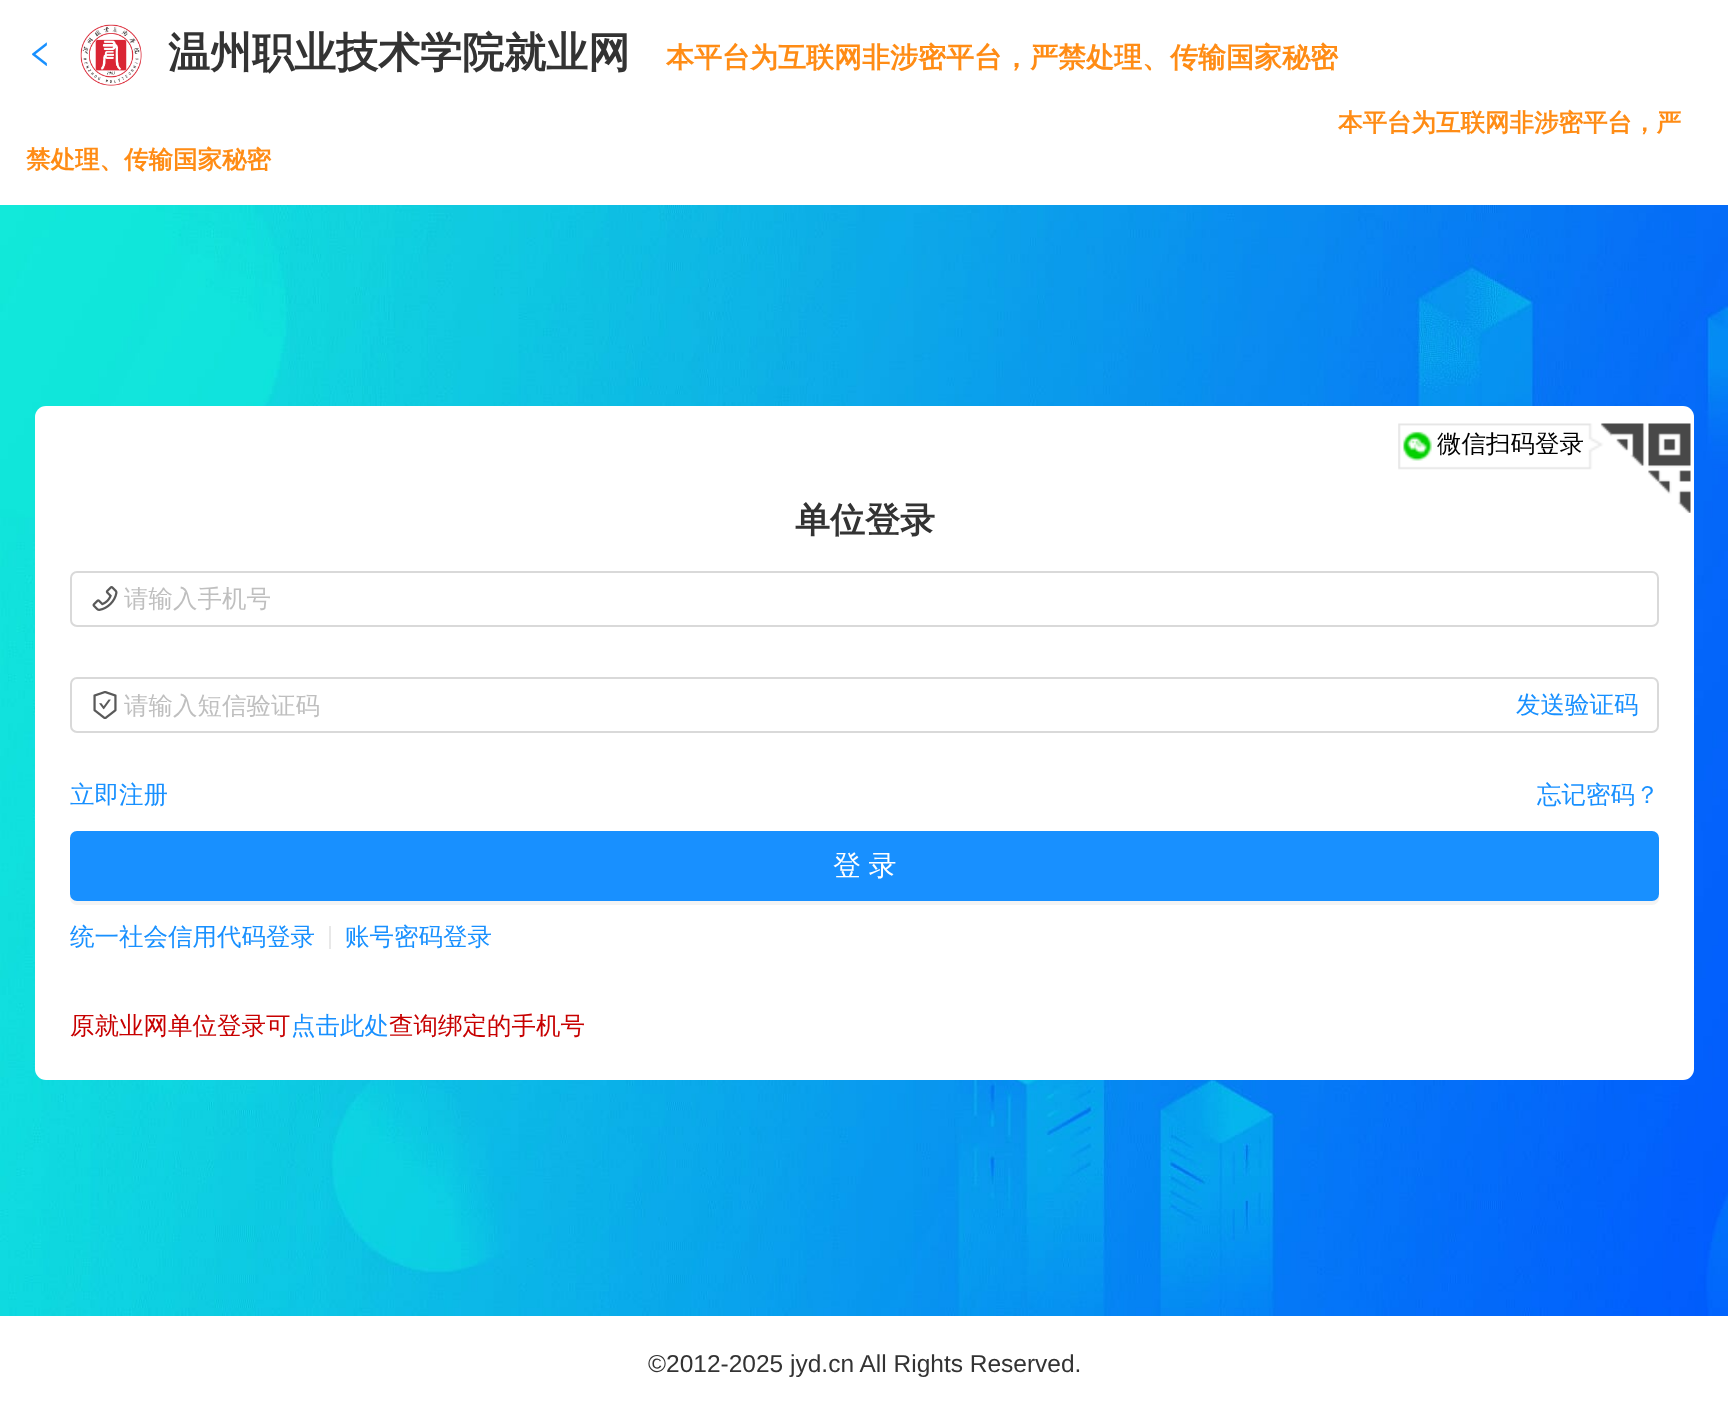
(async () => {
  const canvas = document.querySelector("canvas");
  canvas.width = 1728;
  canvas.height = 1410;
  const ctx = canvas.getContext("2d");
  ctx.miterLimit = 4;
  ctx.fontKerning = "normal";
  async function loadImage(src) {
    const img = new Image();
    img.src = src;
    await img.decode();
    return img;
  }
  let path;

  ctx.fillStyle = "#ffffff";
  ctx.fillRect(0, 0, 1728, 1410);
  ctx.drawImage(await loadImage("img/1.png"), 32, 42, 15, 24);
  ctx.drawImage(await loadImage("img/2.png"), 80, 24, 62, 62);
  ctx.drawImage(await loadImage("img/3.png"), 0, 205, 1728, 1111);
  ctx.beginPath();
  ctx.roundRect(35, 406, 1659, 674, 11);
  ctx.fill();
  ctx.drawImage(await loadImage("img/4.png"), 1398, 423, 293, 90);
  ctx.beginPath();
  ctx.roundRect(71, 572, 1587, 54, 6);
  ctx.strokeStyle = "#d9d9d9";
  ctx.lineWidth = 2;
  ctx.stroke();
  ctx.drawImage(await loadImage("img/5.png"), 92, 586, 26, 25);
  ctx.beginPath();
  ctx.roundRect(71, 678, 1587, 54, 6);
  ctx.stroke();
  ctx.drawImage(await loadImage("img/6.png"), 93, 691, 24, 28);
  ctx.fillStyle = "#f4f4f4";
  path = new Path2D("M70 894V898C70 902 73 905 77 905H1652C1656 905 1659 902 1659 898V894C1659 898 1656 901 1652 901H77C73 901 70 898 70 894Z");
  ctx.fill(path);
  ctx.fillStyle = "#1890ff";
  ctx.beginPath();
  ctx.roundRect(71, 832, 1587, 68, 6);
  ctx.fill();
  ctx.strokeStyle = "#1890ff";
  ctx.stroke();
  ctx.fillStyle = "#e8e8e8";
  ctx.fillRect(329, 926, 2, 23);
  ctx.font = "bold 42px WenQuanYi Zen Hei";
  ctx.fillStyle = "#333333";
  ctx.fillText("温州职业技术学院就业网", 168, 67);
  ctx.font = "bold 28px WenQuanYi Zen Hei";
  ctx.fillStyle = "#ff8c15";
  ctx.fillText("本平台为互联网非涉密平台，严禁处理、传输国家秘密", 666, 67);
  ctx.font = "bold 24.5px WenQuanYi Zen Hei";
  ctx.fillText("本平台为互联网非涉密平台，严", 1338, 131);
  ctx.fillText("禁处理、传输国家秘密", 26, 168);
  ctx.font = "500 24.5px WenQuanYi Zen Hei";
  ctx.fillStyle = "#000000";
  ctx.fillText("微信扫码登录", 1437, 452);
  ctx.font = "bold 35px WenQuanYi Zen Hei";
  ctx.fillStyle = "#333333";
  ctx.fillText("单位登录", 795, 532);
  ctx.font = "500 24.5px WenQuanYi Zen Hei";
  ctx.fillStyle = "#bfbfbf";
  ctx.fillText("请输入手机号", 124, 607);
  ctx.fillText("请输入短信验证码", 124, 714);
  ctx.fillStyle = "#1890ff";
  for (const [text, x, y] of [
    ["发送验证码", 1516, 713],
    ["立即注册", 70, 803],
    ["忘记密码？", 1537, 803],
  ]) {
    ctx.fillText(text, x, y);
  }
  ctx.wordSpacing = "-1px";
  ctx.font = "500 28px WenQuanYi Zen Hei";
  ctx.fillStyle = "#ffffff";
  ctx.fillText("登 录", 833, 875);
  ctx.wordSpacing = "0px";
  ctx.font = "500 24.5px WenQuanYi Zen Hei";
  ctx.fillStyle = "#1890ff";
  ctx.fillText("统一社会信用代码登录", 70, 945);
  ctx.fillText("账号密码登录", 345, 945);
  ctx.fillStyle = "#c70000";
  ctx.fillText("原就业网单位登录可", 70, 1034);
  ctx.fillStyle = "#1890ff";
  ctx.fillText("点击此处", 291, 1034);
  ctx.fillStyle = "#c70000";
  ctx.fillText("查询绑定的手机号", 389, 1034);
  ctx.font = "24.5px Liberation Sans";
  ctx.fillStyle = "#333333";
  ctx.fillText("©2012-2025 jyd.cn All Rights Reserved.", 648, 1372);
})();
